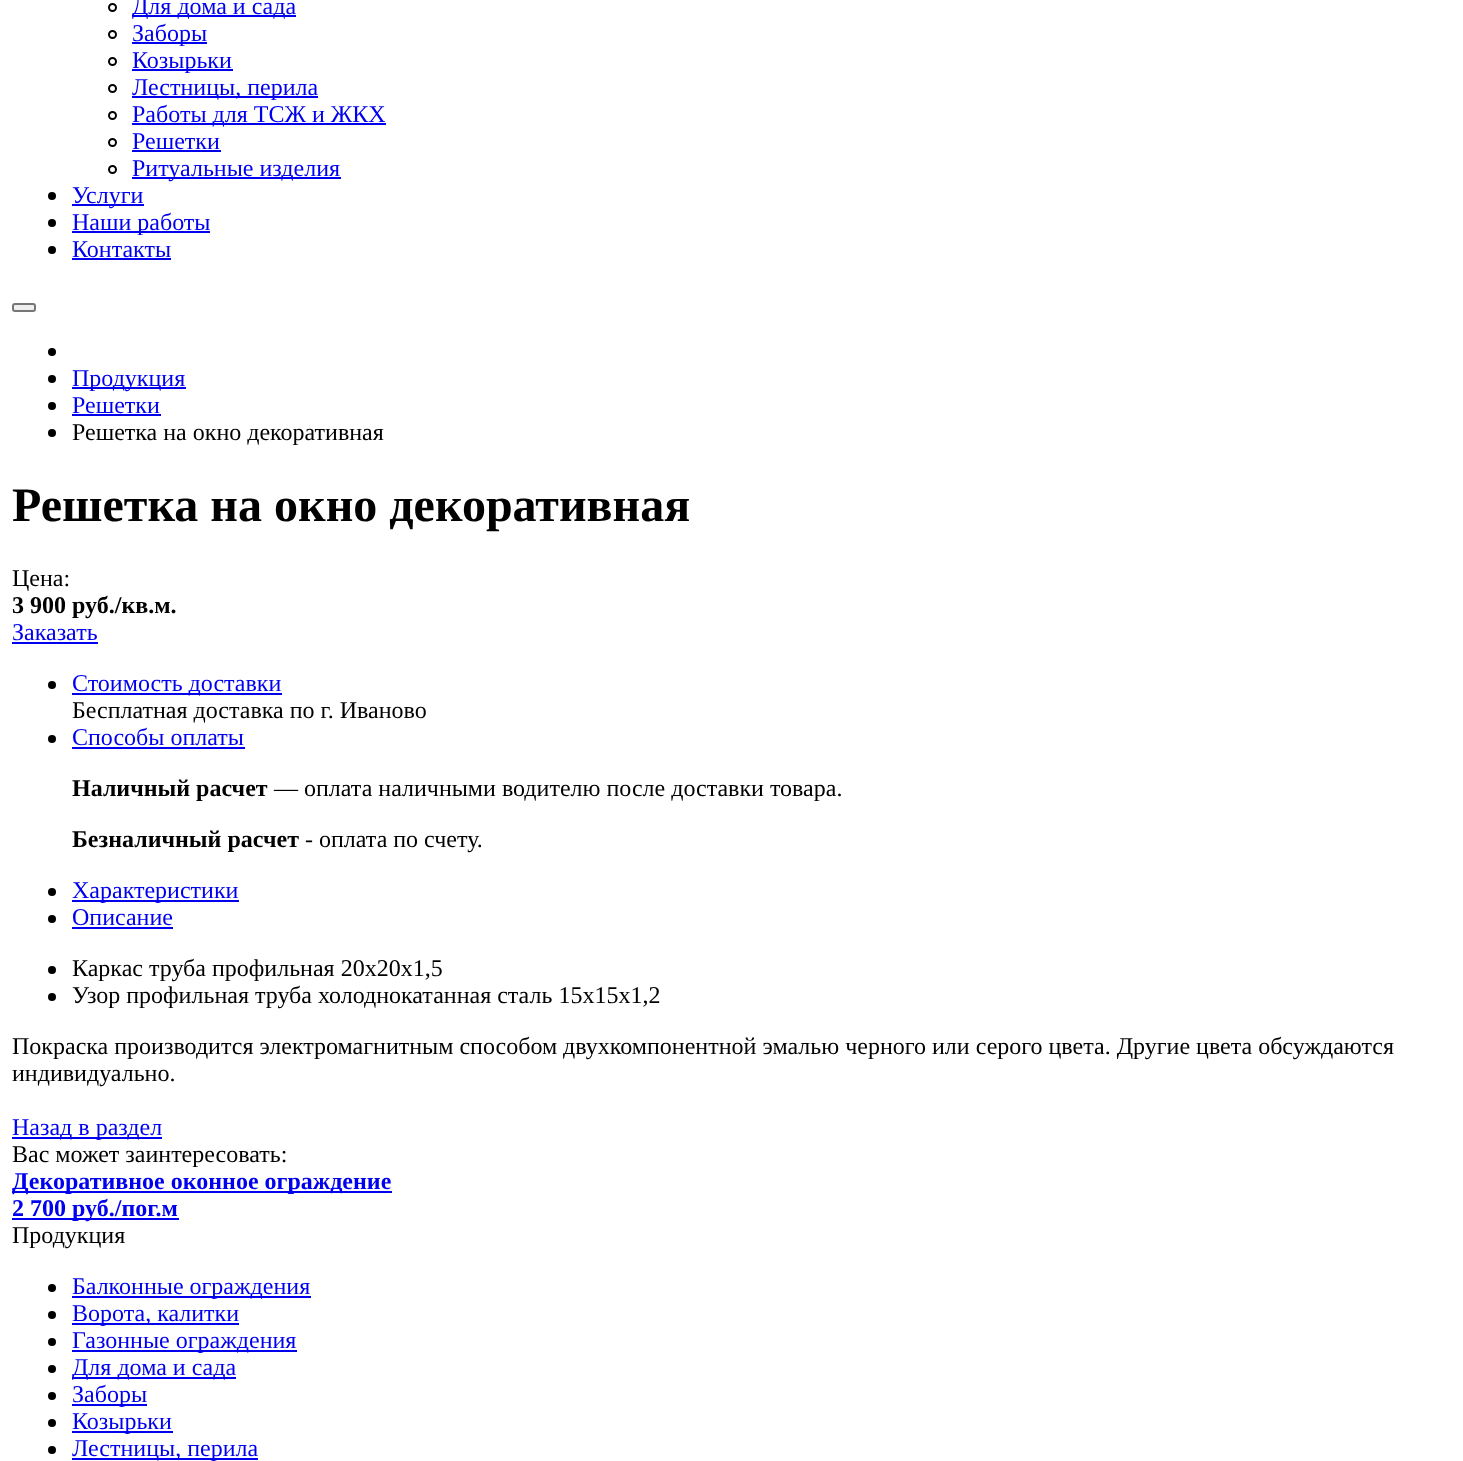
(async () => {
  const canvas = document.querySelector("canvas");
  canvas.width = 1463;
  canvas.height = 1461;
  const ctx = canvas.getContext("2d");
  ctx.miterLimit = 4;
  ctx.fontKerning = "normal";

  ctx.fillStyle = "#ffffff";
  ctx.fillRect(0, 0, 1463, 1461);
  ctx.beginPath();
  ctx.arc(112.5, 7.5, 3.5, 0, Math.PI * 2);
  ctx.strokeStyle = "#000000";
  ctx.lineWidth = 2;
  ctx.stroke();
  ctx.fillStyle = "#0000ee";
  ctx.fillRect(132, 15, 164, 2);
  ctx.beginPath();
  ctx.arc(112.5, 34.5, 3.5, 0, Math.PI * 2);
  ctx.stroke();
  ctx.fillRect(132, 42, 75, 2);
  ctx.beginPath();
  ctx.arc(112.5, 61.5, 3.5, 0, Math.PI * 2);
  ctx.stroke();
  ctx.fillRect(132, 69, 101, 2);
  ctx.beginPath();
  ctx.arc(112.5, 88.5, 3.5, 0, Math.PI * 2);
  ctx.stroke();
  ctx.fillRect(132, 96, 186, 2);
  ctx.beginPath();
  ctx.arc(112.5, 115.5, 3.5, 0, Math.PI * 2);
  ctx.stroke();
  ctx.fillRect(132, 123, 254, 2);
  ctx.beginPath();
  ctx.arc(112.5, 142.5, 3.5, 0, Math.PI * 2);
  ctx.stroke();
  ctx.fillRect(132, 150, 89, 2);
  ctx.beginPath();
  ctx.arc(112.5, 169.5, 3.5, 0, Math.PI * 2);
  ctx.stroke();
  ctx.fillRect(132, 177, 209, 2);
  ctx.fillStyle = "#000000";
  ctx.beginPath();
  ctx.arc(52, 196, 4, 0, Math.PI * 2);
  ctx.fill();
  ctx.fillStyle = "#0000ee";
  ctx.fillRect(72, 204, 72, 2);
  ctx.fillStyle = "#000000";
  ctx.beginPath();
  ctx.arc(52, 223, 4, 0, Math.PI * 2);
  ctx.fill();
  ctx.fillStyle = "#0000ee";
  ctx.fillRect(72, 231, 138, 2);
  ctx.fillStyle = "#000000";
  ctx.beginPath();
  ctx.arc(52, 250, 4, 0, Math.PI * 2);
  ctx.fill();
  ctx.fillStyle = "#0000ee";
  ctx.fillRect(72, 258, 99, 2);
  ctx.fillStyle = "#efefef";
  ctx.beginPath();
  ctx.roundRect(13, 304, 22, 7, 2);
  ctx.fill();
  ctx.strokeStyle = "#767676";
  ctx.stroke();
  ctx.fillStyle = "#000000";
  ctx.beginPath();
  ctx.arc(52, 352, 4, 0, Math.PI * 2);
  ctx.fill();
  ctx.beginPath();
  ctx.arc(52, 379, 4, 0, Math.PI * 2);
  ctx.fill();
  ctx.fillStyle = "#0000ee";
  ctx.fillRect(72, 387, 114, 2);
  ctx.fillStyle = "#000000";
  ctx.beginPath();
  ctx.arc(52, 406, 4, 0, Math.PI * 2);
  ctx.fill();
  ctx.fillStyle = "#0000ee";
  ctx.fillRect(72, 414, 89, 2);
  ctx.fillStyle = "#000000";
  ctx.beginPath();
  ctx.arc(52, 433, 4, 0, Math.PI * 2);
  ctx.fill();
  ctx.fillStyle = "#0000ee";
  ctx.fillRect(12, 642, 86, 2);
  ctx.fillStyle = "#000000";
  ctx.beginPath();
  ctx.arc(52, 685, 4, 0, Math.PI * 2);
  ctx.fill();
  ctx.fillStyle = "#0000ee";
  ctx.fillRect(72, 693, 210, 2);
  ctx.fillStyle = "#000000";
  ctx.beginPath();
  ctx.arc(52, 739, 4, 0, Math.PI * 2);
  ctx.fill();
  ctx.fillStyle = "#0000ee";
  ctx.fillRect(72, 747, 173, 2);
  ctx.fillStyle = "#000000";
  ctx.beginPath();
  ctx.arc(52, 892, 4, 0, Math.PI * 2);
  ctx.fill();
  ctx.fillStyle = "#0000ee";
  ctx.fillRect(72, 900, 167, 2);
  ctx.fillStyle = "#000000";
  ctx.beginPath();
  ctx.arc(52, 919, 4, 0, Math.PI * 2);
  ctx.fill();
  ctx.fillStyle = "#0000ee";
  ctx.fillRect(72, 927, 101, 2);
  ctx.fillStyle = "#000000";
  ctx.beginPath();
  ctx.arc(52, 970, 4, 0, Math.PI * 2);
  ctx.fill();
  ctx.beginPath();
  ctx.arc(52, 997, 4, 0, Math.PI * 2);
  ctx.fill();
  for (const [x, y, w, h, color] of [
    [12, 1137, 150, 2, "#0000ee"],
    [12, 1191, 380, 2, "#0000ee"],
    [12, 1218, 167, 2, "#0000ee"],
  ]) {
    ctx.fillStyle = color;
    ctx.fillRect(x, y, w, h);
  }
  ctx.fillStyle = "#000000";
  ctx.beginPath();
  ctx.arc(52, 1288, 4, 0, Math.PI * 2);
  ctx.fill();
  ctx.fillStyle = "#0000ee";
  ctx.fillRect(72, 1296, 239, 2);
  ctx.fillStyle = "#000000";
  ctx.beginPath();
  ctx.arc(52, 1315, 4, 0, Math.PI * 2);
  ctx.fill();
  ctx.fillStyle = "#0000ee";
  ctx.fillRect(72, 1323, 167, 2);
  ctx.fillStyle = "#000000";
  ctx.beginPath();
  ctx.arc(52, 1342, 4, 0, Math.PI * 2);
  ctx.fill();
  ctx.fillStyle = "#0000ee";
  ctx.fillRect(72, 1350, 225, 2);
  ctx.fillStyle = "#000000";
  ctx.beginPath();
  ctx.arc(52, 1369, 4, 0, Math.PI * 2);
  ctx.fill();
  ctx.fillStyle = "#0000ee";
  ctx.fillRect(72, 1377, 164, 2);
  ctx.fillStyle = "#000000";
  ctx.beginPath();
  ctx.arc(52, 1396, 4, 0, Math.PI * 2);
  ctx.fill();
  ctx.fillStyle = "#0000ee";
  ctx.fillRect(72, 1404, 75, 2);
  ctx.fillStyle = "#000000";
  ctx.beginPath();
  ctx.arc(52, 1423, 4, 0, Math.PI * 2);
  ctx.fill();
  ctx.fillStyle = "#0000ee";
  ctx.fillRect(72, 1431, 101, 2);
  ctx.fillStyle = "#000000";
  ctx.beginPath();
  ctx.arc(52, 1450, 4, 0, Math.PI * 2);
  ctx.fill();
  ctx.fillStyle = "#0000ee";
  ctx.fillRect(72, 1458, 186, 2);
  ctx.font = "24px Liberation Serif";
  for (const [text, x, y] of [
    ["Для дома и сада", 132, 14],
    ["Заборы", 132, 41],
    ["Козырьки", 132, 68],
    ["Лестницы, перила", 132, 95],
    ["Работы для ТСЖ и ЖКХ", 132, 122],
    ["Решетки", 132, 149],
    ["Ритуальные изделия", 132, 176],
    ["Услуги", 72, 203],
    ["Наши работы", 72, 230],
    ["Контакты", 72, 257],
    ["Продукция", 72, 386],
    ["Решетки", 72, 413],
  ]) {
    ctx.fillText(text, x, y);
  }
  ctx.fillStyle = "#000000";
  ctx.fillText("Решетка на окно декоративная", 72, 440);
  ctx.font = "bold 48px Liberation Serif";
  ctx.fillText("Решетка на окно декоративная", 12, 521);
  ctx.font = "24px Liberation Serif";
  ctx.fillText("Цена:", 12, 586);
  ctx.font = "bold 24px Liberation Serif";
  ctx.fillText("3 900 руб./кв.м.", 12, 613);
  ctx.font = "24px Liberation Serif";
  ctx.fillStyle = "#0000ee";
  ctx.fillText("Заказать", 12, 640);
  ctx.fillText("Стоимость доставки", 72, 691);
  ctx.fillStyle = "#000000";
  ctx.fillText("Бесплатная доставка по г. Иваново", 72, 718);
  ctx.fillStyle = "#0000ee";
  ctx.fillText("Способы оплаты", 72, 745);
  ctx.font = "bold 24px Liberation Serif";
  ctx.fillStyle = "#000000";
  ctx.fillText("Наличный расчет", 72, 796);
  ctx.font = "24px Liberation Serif";
  ctx.fillText("— оплата наличными водителю после доставки товара.", 274, 796);
  ctx.font = "bold 24px Liberation Serif";
  ctx.fillText("Безналичный расчет", 72, 847);
  ctx.font = "24px Liberation Serif";
  ctx.fillText("- оплата по счету.", 305, 847);
  ctx.fillStyle = "#0000ee";
  ctx.fillText("Характеристики", 72, 898);
  ctx.fillText("Описание", 72, 925);
  ctx.fillStyle = "#000000";
  for (const [text, x, y] of [
    ["Каркас труба профильная 20х20х1,5", 72, 976],
    ["Узор профильная труба холоднокатанная сталь 15х15х1,2", 72, 1003],
    ["Покраска производится электромагнитным способом двухкомпонентной эмалью черного или серого цвета. Другие цвета обсуждаются", 12, 1054],
    ["индивидуально.", 12, 1081],
  ]) {
    ctx.fillText(text, x, y);
  }
  ctx.fillStyle = "#0000ee";
  ctx.fillText("Назад в раздел", 12, 1135);
  ctx.fillStyle = "#000000";
  ctx.fillText("Вас может заинтересовать:", 12, 1162);
  ctx.font = "bold 24px Liberation Serif";
  ctx.fillStyle = "#0000ee";
  ctx.fillText("Декоративное оконное ограждение", 12, 1189);
  ctx.fillText("2 700 руб./пог.м", 12, 1216);
  ctx.font = "24px Liberation Serif";
  ctx.fillStyle = "#000000";
  ctx.fillText("Продукция", 12, 1243);
  ctx.fillStyle = "#0000ee";
  for (const [text, x, y] of [
    ["Балконные ограждения", 72, 1294],
    ["Ворота, калитки", 72, 1321],
    ["Газонные ограждения", 72, 1348],
    ["Для дома и сада", 72, 1375],
    ["Заборы", 72, 1402],
    ["Козырьки", 72, 1429],
    ["Лестницы, перила", 72, 1456],
  ]) {
    ctx.fillText(text, x, y);
  }
})();
